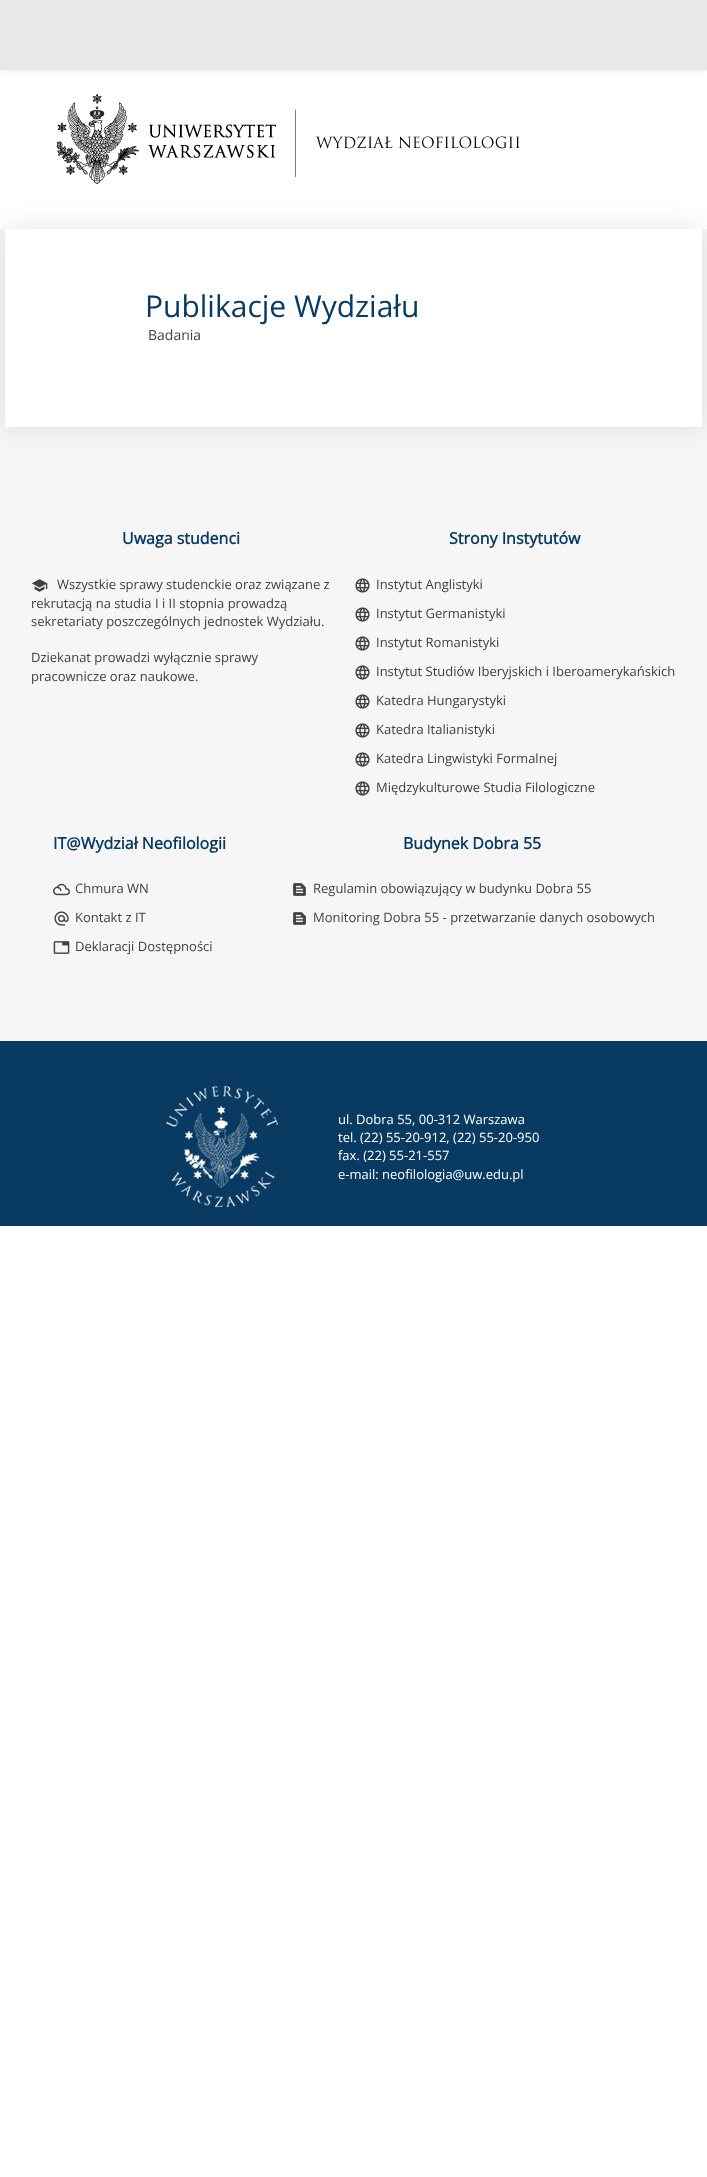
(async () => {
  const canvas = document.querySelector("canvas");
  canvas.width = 707;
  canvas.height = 2177;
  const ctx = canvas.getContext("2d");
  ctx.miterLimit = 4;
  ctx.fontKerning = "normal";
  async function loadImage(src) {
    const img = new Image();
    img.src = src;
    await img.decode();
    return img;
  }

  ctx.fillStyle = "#ffffff";
  ctx.fillRect(0, 0, 707, 2177);
  ctx.fillStyle = "rgba(0, 0, 0, 0.07)";
  ctx.filter = "blur(2.5px)";
  ctx.beginPath();
  ctx.rect(0, 1, 707, 70);
  ctx.fill();
  ctx.filter = "none";
  for (const [x, y, w, h, color] of [
    [0, 1, 707, 69, "#e8e8e8"],
    [0, 0, 707, 1, "#ebebeb"],
    [0, 229, 707, 812, "#f6f6f6"],
  ]) {
    ctx.fillStyle = color;
    ctx.fillRect(x, y, w, h);
  }
  ctx.fillStyle = "rgba(0, 0, 0, 0.1)";
  ctx.filter = "blur(15px)";
  ctx.beginPath();
  ctx.rect(5, 229, 697, 198);
  ctx.fill();
  ctx.filter = "none";
  ctx.drawImage(await loadImage("img/1.png"), 56, 93, 464, 91);
  ctx.fillStyle = "#ffffff";
  ctx.fillRect(5, 229, 697, 198);
  ctx.drawImage(await loadImage("img/2.png"), 31, 579, 17, 13);
  ctx.drawImage(await loadImage("img/3.png"), 355, 578, 15, 15);
  ctx.drawImage(await loadImage("img/3.png"), 355, 607, 15, 15);
  ctx.drawImage(await loadImage("img/3.png"), 355, 636, 15, 15);
  ctx.drawImage(await loadImage("img/3.png"), 355, 665, 15, 15);
  ctx.drawImage(await loadImage("img/3.png"), 355, 694, 15, 15);
  ctx.drawImage(await loadImage("img/3.png"), 355, 723, 15, 15);
  ctx.drawImage(await loadImage("img/3.png"), 355, 752, 15, 15);
  ctx.drawImage(await loadImage("img/3.png"), 355, 781, 15, 15);
  ctx.drawImage(await loadImage("img/4.png"), 53, 883, 17, 13);
  ctx.drawImage(await loadImage("img/5.png"), 54, 911, 15, 15);
  ctx.drawImage(await loadImage("img/6.png"), 53, 941, 17, 13);
  ctx.drawImage(await loadImage("img/7.png"), 293, 883, 13, 13);
  ctx.drawImage(await loadImage("img/7.png"), 293, 912, 13, 13);
  ctx.fillStyle = "#083a62";
  ctx.fillRect(0, 1041, 707, 185);
  ctx.drawImage(await loadImage("img/8.png"), 166, 1086, 112, 121);
  ctx.font = "30px Open Sans";
  ctx.fillText("Publikacje Wydziału", 145, 317);
  ctx.font = "14px Open Sans";
  ctx.fillStyle = "#414042";
  ctx.fillText("Badania", 148, 340);
  ctx.font = "bold 16px Open Sans";
  ctx.fillStyle = "#083a62";
  ctx.fillText("Uwaga studenci", 122, 544);
  ctx.font = "13px Open Sans";
  ctx.fillStyle = "#414042";
  for (const [text, x, y] of [
    ["Wszystkie sprawy studenckie oraz związane z", 57, 589],
    ["rekrutacją na studia I i II stopnia prowadzą", 31, 608],
    ["sekretariaty poszczególnych jednostek Wydziału.", 31, 626],
    ["Dziekanat prowadzi wyłącznie sprawy", 31, 662],
    ["pracownicze oraz naukowe.", 31, 681],
  ]) {
    ctx.fillText(text, x, y);
  }
  ctx.font = "bold 16px Open Sans";
  ctx.fillStyle = "#083a62";
  ctx.fillText("Strony Instytutów", 449, 544);
  ctx.font = "13px Open Sans";
  ctx.fillStyle = "#414042";
  for (const [text, x, y] of [
    ["Instytut Anglistyki", 376, 589],
    ["Instytut Germanistyki", 376, 618],
    ["Instytut Romanistyki", 376, 647],
    ["Instytut Studiów Iberyjskich i Iberoamerykańskich", 376, 676],
    ["Katedra Hungarystyki", 376, 705],
    ["Katedra Italianistyki", 376, 734],
    ["Katedra Lingwistyki Formalnej", 376, 763],
    ["Międzykulturowe Studia Filologiczne", 376, 792],
  ]) {
    ctx.fillText(text, x, y);
  }
  ctx.font = "bold 16px Open Sans";
  ctx.fillStyle = "#083a62";
  ctx.fillText("IT@Wydział Neofilologii", 53, 849);
  ctx.font = "13px Open Sans";
  ctx.fillStyle = "#414042";
  for (const [text, x, y] of [
    ["Chmura WN", 75, 893],
    ["Kontakt z IT", 75, 922],
    ["Deklaracji Dostępności", 75, 951],
  ]) {
    ctx.fillText(text, x, y);
  }
  ctx.font = "bold 16px Open Sans";
  ctx.fillStyle = "#083a62";
  ctx.fillText("Budynek Dobra 55", 403, 849);
  ctx.font = "13px Open Sans";
  ctx.fillStyle = "#414042";
  ctx.fillText("Regulamin obowiązujący w budynku Dobra 55", 313, 893);
  ctx.fillText("Monitoring Dobra 55 - przetwarzanie danych osobowych", 313, 922);
  ctx.fillStyle = "#ffffff";
  for (const [text, x, y] of [
    ["ul. Dobra 55, 00-312 Warszawa", 338, 1124],
    ["tel. (22) 55-20-912, (22) 55-20-950", 338, 1142],
    ["fax. (22) 55-21-557", 338, 1160],
    ["e-mail: neofilologia@uw.edu.pl", 338, 1179],
  ]) {
    ctx.fillText(text, x, y);
  }
})();
